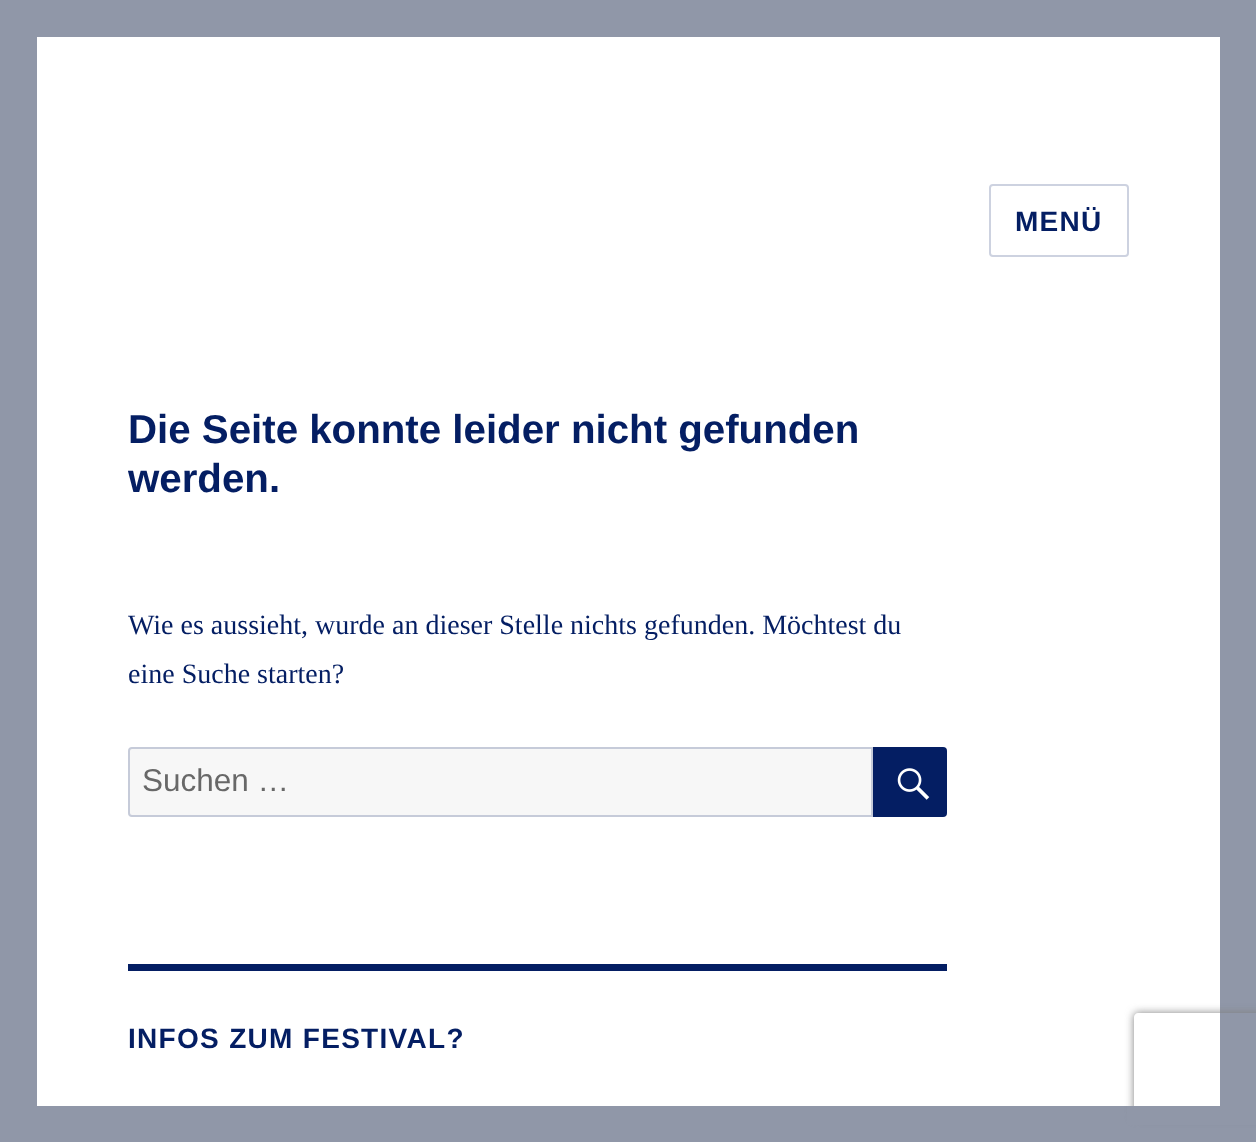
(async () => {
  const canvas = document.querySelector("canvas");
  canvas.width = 1256;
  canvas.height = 1142;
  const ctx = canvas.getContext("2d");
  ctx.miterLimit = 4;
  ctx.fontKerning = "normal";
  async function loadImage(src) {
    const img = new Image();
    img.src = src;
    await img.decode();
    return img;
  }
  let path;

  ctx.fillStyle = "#9097a8";
  ctx.fillRect(0, 0, 1256, 1142);
  ctx.fillStyle = "#ffffff";
  ctx.fillRect(37, 37, 1183, 1069);
  ctx.beginPath();
  ctx.roundRect(990, 185, 138, 71, 3);
  ctx.strokeStyle = "#cdd2e0";
  ctx.lineWidth = 2;
  ctx.stroke();
  ctx.fillStyle = "#f7f7f7";
  ctx.beginPath();
  ctx.roundRect(128, 747, 745, 70, [4, 0, 0, 4]);
  ctx.fill();
  ctx.beginPath();
  ctx.roundRect(129, 748, 743, 68, [3, 0, 0, 3]);
  ctx.strokeStyle = "rgba(4, 30, 99, 0.2)";
  ctx.stroke();
  ctx.fillStyle = "#041e63";
  ctx.beginPath();
  ctx.roundRect(873, 747, 74, 70, [0, 4, 4, 0]);
  ctx.fill();
  ctx.drawImage(await loadImage("img/1.png"), 897, 768, 33, 32);
  ctx.fillRect(128, 964, 819, 7);
  ctx.save();
  path = new Path2D("M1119 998H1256V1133H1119ZM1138 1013H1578C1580 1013 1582 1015 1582 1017V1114C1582 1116 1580 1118 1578 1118H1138C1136 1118 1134 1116 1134 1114V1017C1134 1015 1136 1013 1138 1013Z");
  ctx.clip(path, "evenodd");
  ctx.fillStyle = "#808080";
  ctx.filter = "blur(4.5px)";
  ctx.beginPath();
  ctx.roundRect(1134, 1013, 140, 105, 4);
  ctx.fill();
  ctx.filter = "none";
  ctx.restore();
  ctx.fillStyle = "#9097a8";
  ctx.fillRect(1127, 1106, 129, 19);
  ctx.letterSpacing = "1.3px";
  ctx.font = "bold 28px Liberation Sans";
  ctx.fillStyle = "#041e63";
  ctx.fillText("MENÜ", 1015, 231);
  ctx.letterSpacing = "0px";
  ctx.font = "bold 40.25px Liberation Sans";
  ctx.fillText("Die Seite konnte leider nicht gefunden", 128, 443);
  ctx.fillText("werden.", 128, 492);
  ctx.font = "28px Liberation Serif";
  ctx.fillText("Wie es aussieht, wurde an dieser Stelle nichts gefunden. Möchtest du", 128, 634);
  ctx.fillText("eine Suche starten?", 128, 683);
  ctx.font = "31.5px Liberation Sans";
  ctx.fillStyle = "#686868";
  ctx.fillText("Suchen …", 142, 791);
  ctx.letterSpacing = "1.3px";
  ctx.font = "bold 28px Liberation Sans";
  ctx.fillStyle = "#041e63";
  ctx.fillText("INFOS ZUM FESTIVAL?", 128, 1048);
})();
